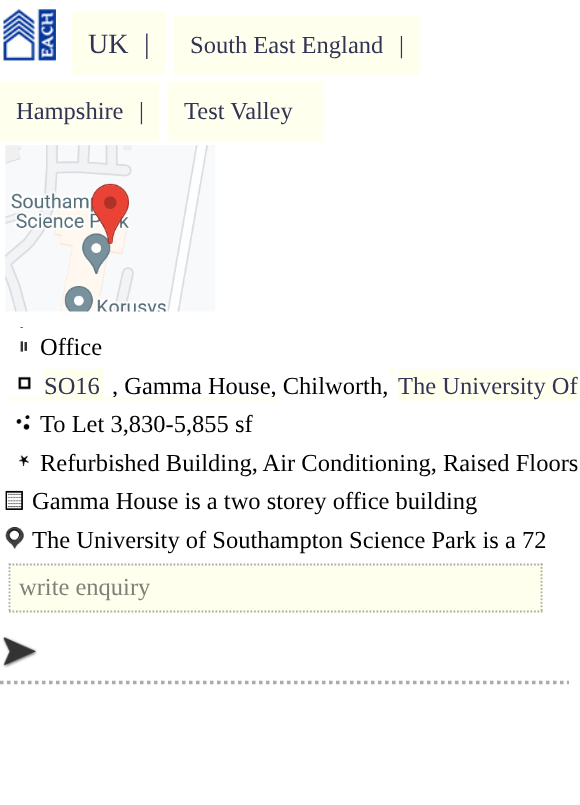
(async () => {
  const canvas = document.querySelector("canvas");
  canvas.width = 580;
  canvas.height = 805;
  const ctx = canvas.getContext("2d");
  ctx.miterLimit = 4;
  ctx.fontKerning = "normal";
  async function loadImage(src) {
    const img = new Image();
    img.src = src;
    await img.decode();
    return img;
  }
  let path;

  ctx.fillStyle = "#ffffff";
  ctx.fillRect(0, 0, 580, 805);
  ctx.drawImage(await loadImage("img/1.png"), 3, 9, 53, 52);
  for (const [x, y, w, h, color] of [
    [72, 12, 93, 63, "#ffffee"],
    [173, 16, 247, 59, "#ffffee"],
    [0, 82, 159, 60, "#ffffee"],
    [168, 82, 156, 60, "#ffffee"],
  ]) {
    ctx.fillStyle = color;
    ctx.fillRect(x, y, w, h);
  }
  path = new Path2D("M0 682.5H569");
  ctx.strokeStyle = "#aaaaaa";
  ctx.lineWidth = 3.5;
  ctx.setLineDash([3.5, 3.5]);
  ctx.stroke(path);
  ctx.drawImage(await loadImage("img/2.png"), 5, 145, 211, 167);
  ctx.drawImage(await loadImage("img/3.png"), 20, 327, 7, 25);
  ctx.drawImage(await loadImage("img/4.png"), 18, 376, 13, 14);
  for (const [x, y, w, h, color] of [
    [68, 366, 4, 10, "#ffffee"],
    [44, 369, 59, 28, "#ffffee"],
    [390, 366, 4, 10, "#ffffee"],
    [397, 369, 181, 32, "#ffffee"],
  ]) {
    ctx.fillStyle = color;
    ctx.fillRect(x, y, w, h);
  }
  ctx.drawImage(await loadImage("img/5.png"), 16, 415, 14, 15);
  ctx.drawImage(await loadImage("img/6.png"), 19, 455, 10, 11);
  ctx.drawImage(await loadImage("img/7.png"), 5, 490, 18, 20);
  ctx.drawImage(await loadImage("img/8.png"), 5, 527, 19, 22);
  ctx.fillRect(9, 564, 534, 49);
  path = new Path2D("M9 564.5H542.5");
  ctx.lineWidth = 1.8;
  ctx.setLineDash([1.75, 1.75]);
  ctx.stroke(path);
  path = new Path2D("M541.5 563.5V612.5");
  ctx.stroke(path);
  path = new Path2D("M9 611.5H542.5");
  ctx.stroke(path);
  path = new Path2D("M9.5 563.5V612.5");
  ctx.stroke(path);
  ctx.drawImage(await loadImage("img/9.png"), 2, 636, 35, 32);
  ctx.font = "28px Liberation Serif";
  ctx.fillStyle = "#333355";
  ctx.fillText("UK", 88, 53);
  ctx.fillText("|", 144, 53);
  ctx.font = "24.5px Liberation Serif";
  for (const [text, x, y] of [
    ["South East England", 190, 53],
    ["|", 399, 53],
    ["Hampshire", 16, 119],
    ["|", 139, 119],
    ["Test Valley", 184, 119],
  ]) {
    ctx.fillText(text, x, y);
  }
  ctx.fillStyle = "#000000";
  ctx.fillText("Office", 40, 355);
  ctx.fillStyle = "#333355";
  ctx.fillText("SO16", 44, 394);
  ctx.fillStyle = "#000000";
  ctx.fillText(", Gamma House, Chilworth,", 112, 394);
  ctx.fillStyle = "#333355";
  ctx.fillText("The University Of", 398, 394);
  ctx.fillStyle = "#ffffee";
  ctx.fillRect(9, 397, 268, 4);
  ctx.fillStyle = "#000000";
  for (const [text, x, y] of [
    ["To Let 3,830-5,855 sf", 40, 432],
    ["Refurbished Building, Air Conditioning, Raised Floors", 40, 471],
    ["Gamma House is a two storey office building", 32, 509],
    ["The University of Southampton Science Park is a 72", 32, 548],
  ]) {
    ctx.fillText(text, x, y);
  }
  ctx.fillStyle = "#808077";
  ctx.fillText("write enquiry", 19, 595);
})();
